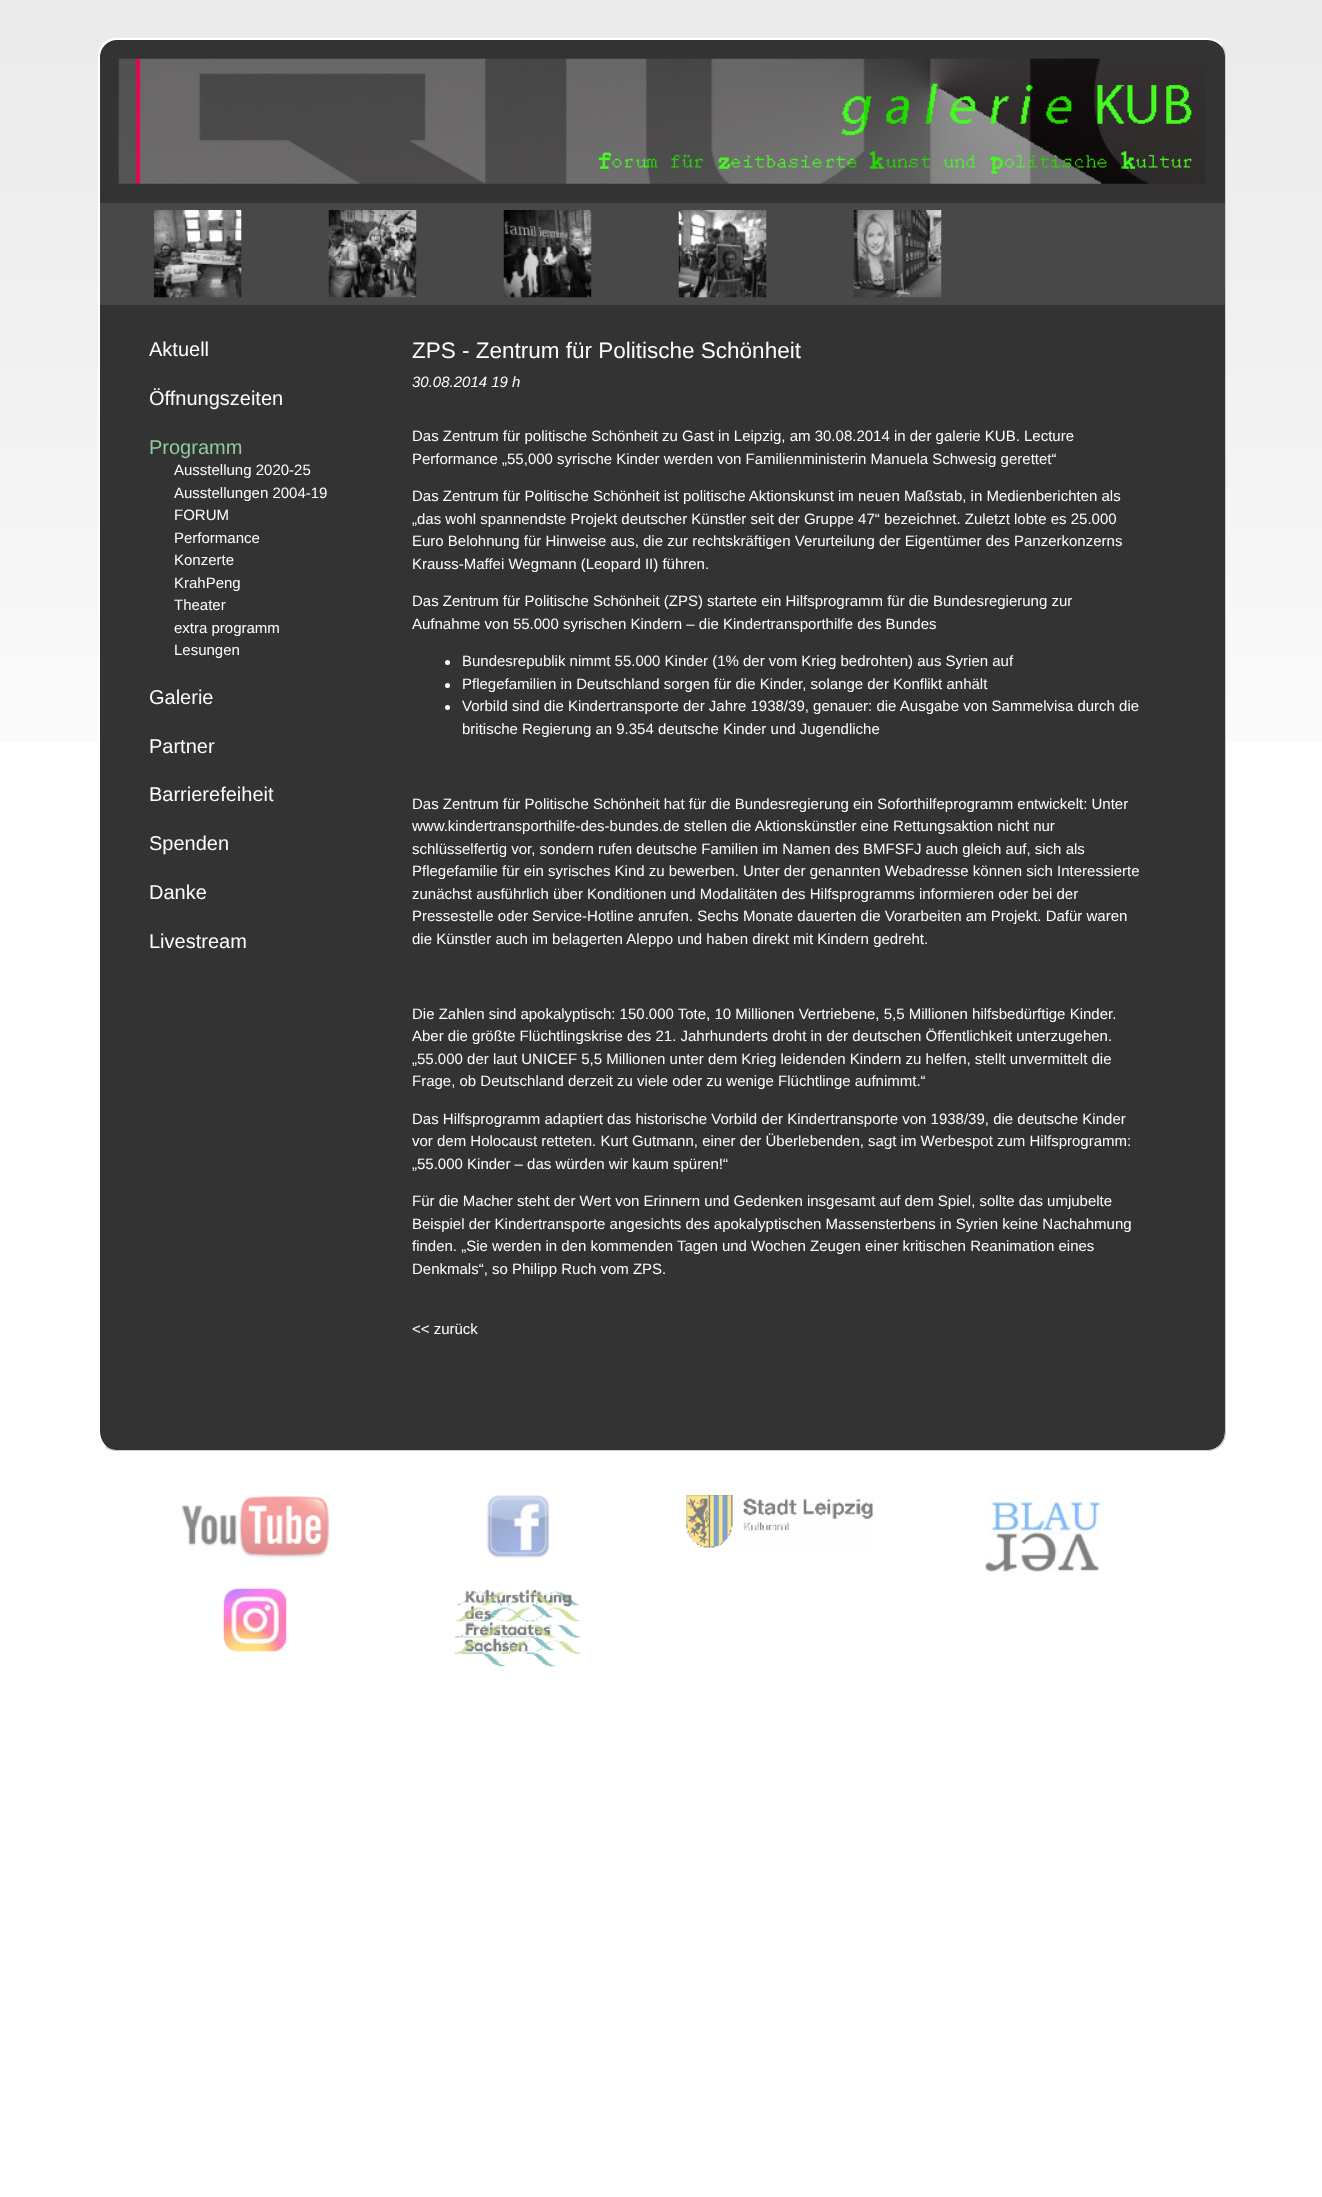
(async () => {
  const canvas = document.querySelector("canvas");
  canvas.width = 1322;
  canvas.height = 2197;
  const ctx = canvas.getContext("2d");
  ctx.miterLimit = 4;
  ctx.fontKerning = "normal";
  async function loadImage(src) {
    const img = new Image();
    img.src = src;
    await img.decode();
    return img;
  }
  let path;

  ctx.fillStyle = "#ffffff";
  ctx.fillRect(0, 0, 1322, 2197);
  ctx.drawImage(await loadImage("img/1.png"), 0, 0, 1322, 741);
  ctx.fillStyle = "#333333";
  path = new Path2D("M116 40H1208C1217 40 1225 47 1225 56V1432C1225 1442 1217 1450 1208 1450H116C107 1450 100 1442 100 1432V56C100 47 107 40 116 40Z");
  ctx.fill(path);
  ctx.fillStyle = "#ffffff";
  path = new Path2D("M116 38C111 38 106 40 103 43L105 45C108 42 112 40 116 40H1208C1213 40 1219 43 1222 47V45C1219 41 1214 38 1208 38Z");
  ctx.fill(path);
  ctx.fillStyle = "#cccccc";
  path = new Path2D("M1222 45C1225 48 1226 52 1226 56V1432C1226 1438 1224 1442 1221 1446L1220 1445C1223 1442 1225 1437 1225 1432V56C1225 52 1224 49 1222 47Z");
  ctx.fill(path);
  path = new Path2D("M1221 1446C1217 1449 1213 1451 1208 1451H116C112 1451 108 1450 105 1447H107C109 1449 112 1450 116 1450H1208C1212 1450 1217 1448 1220 1445Z");
  ctx.fill(path);
  ctx.fillStyle = "#ffffff";
  path = new Path2D("M103 43C100 46 98 51 98 56V1432C98 1439 101 1444 105 1447H107C103 1443 100 1438 100 1432V56C100 52 102 48 105 45Z");
  ctx.fill(path);
  ctx.drawImage(await loadImage("img/2.png"), 118, 58, 1088, 126);
  ctx.fillStyle = "#484848";
  ctx.fillRect(100, 203, 1125, 102);
  ctx.drawImage(await loadImage("img/3.png"), 153, 210, 89, 88);
  ctx.drawImage(await loadImage("img/4.png"), 328, 210, 89, 88);
  ctx.drawImage(await loadImage("img/5.png"), 503, 210, 89, 88);
  ctx.drawImage(await loadImage("img/6.png"), 678, 210, 89, 88);
  ctx.drawImage(await loadImage("img/7.png"), 853, 210, 89, 88);
  ctx.fillStyle = "#fdfdfd";
  ctx.beginPath();
  ctx.arc(447.5, 662.5, 2.5, 0, Math.PI * 2);
  ctx.fill();
  ctx.beginPath();
  ctx.arc(447.5, 685.5, 2.5, 0, Math.PI * 2);
  ctx.fill();
  ctx.beginPath();
  ctx.arc(447.5, 707.5, 2.5, 0, Math.PI * 2);
  ctx.fill();
  ctx.drawImage(await loadImage("img/8.png"), 181, 1496, 149, 62);
  ctx.drawImage(await loadImage("img/9.png"), 487, 1495, 62, 63);
  ctx.drawImage(await loadImage("img/10.png"), 686, 1495, 187, 53);
  ctx.drawImage(await loadImage("img/11.png"), 984, 1495, 117, 77);
  ctx.drawImage(await loadImage("img/12.png"), 223, 1588, 64, 64);
  ctx.drawImage(await loadImage("img/13.png"), 455, 1589, 125, 78);
  ctx.font = "20px Liberation Sans";
  ctx.fillText("Aktuell", 149, 356);
  ctx.fillText("Öffnungszeiten", 149, 405);
  ctx.fillStyle = "#90cb9d";
  ctx.fillText("Programm", 149, 454);
  ctx.font = "15px Liberation Sans";
  ctx.fillStyle = "#fdfdfd";
  for (const [text, x, y] of [
    ["Ausstellung 2020-25", 174, 475],
    ["Ausstellungen 2004-19", 174, 498],
    ["FORUM", 174, 520],
    ["Performance", 174, 543],
    ["Konzerte", 174, 565],
    ["KrahPeng", 174, 588],
    ["Theater", 174, 610],
    ["extra programm", 174, 633],
    ["Lesungen", 174, 655],
  ]) {
    ctx.fillText(text, x, y);
  }
  ctx.font = "20px Liberation Sans";
  for (const [text, x, y] of [
    ["Galerie", 149, 704],
    ["Partner", 149, 753],
    ["Barrierefeiheit", 149, 801],
    ["Spenden", 149, 850],
    ["Danke", 149, 899],
    ["Livestream", 149, 948],
  ]) {
    ctx.fillText(text, x, y);
  }
  ctx.font = "22.5px Liberation Sans";
  ctx.fillText("ZPS - Zentrum für Politische Schönheit", 412, 358);
  ctx.font = "italic 15px Liberation Sans";
  ctx.fillText("30.08.2014 19 h", 412, 387);
  ctx.font = "15px Liberation Sans";
  for (const [text, x, y] of [
    ["Das Zentrum für politische Schönheit zu Gast in Leipzig, am 30.08.2014 in der galerie KUB. Lecture", 412, 441],
    ["Performance „55,000 syrische Kinder werden von Familienministerin Manuela Schwesig gerettet“", 412, 464],
    ["Das Zentrum für Politische Schönheit ist politische Aktionskunst im neuen Maßstab, in Medienberichten als", 412, 501],
    ["„das wohl spannendste Projekt deutscher Künstler seit der Gruppe 47“ bezeichnet. Zuletzt lobte es 25.000", 412, 524],
    ["Euro Belohnung für Hinweise aus, die zur rechtskräftigen Verurteilung der Eigentümer des Panzerkonzerns", 412, 546],
    ["Krauss-Maffei Wegmann (Leopard II) führen.", 412, 569],
    ["Das Zentrum für Politische Schönheit (ZPS) startete ein Hilfsprogramm für die Bundesregierung zur", 412, 606],
    ["Aufnahme von 55.000 syrischen Kindern – die Kindertransporthilfe des Bundes", 412, 629],
    ["Bundesrepublik nimmt 55.000 Kinder (1% der vom Krieg bedrohten) aus Syrien auf", 462, 666],
    ["Pflegefamilien in Deutschland sorgen für die Kinder, solange der Konflikt anhält", 462, 689],
    ["Vorbild sind die Kindertransporte der Jahre 1938/39, genauer: die Ausgabe von Sammelvisa durch die", 462, 711],
    ["britische Regierung an 9.354 deutsche Kinder und Jugendliche", 462, 734],
    ["Das Zentrum für Politische Schönheit hat für die Bundesregierung ein Soforthilfeprogramm entwickelt: Unter", 412, 809],
    ["www.kindertransporthilfe-des-bundes.de stellen die Aktionskünstler eine Rettungsaktion nicht nur", 412, 831],
    ["schlüsselfertig vor, sondern rufen deutsche Familien im Namen des BMFSFJ auch gleich auf, sich als", 412, 854],
    ["Pflegefamilie für ein syrisches Kind zu bewerben. Unter der genannten Webadresse können sich Interessierte", 412, 876],
    ["zunächst ausführlich über Konditionen und Modalitäten des Hilfsprogramms informieren oder bei der", 412, 899],
    ["Pressestelle oder Service-Hotline anrufen. Sechs Monate dauerten die Vorarbeiten am Projekt. Dafür waren", 412, 921],
    ["die Künstler auch im belagerten Aleppo und haben direkt mit Kindern gedreht.", 412, 944],
    ["Die Zahlen sind apokalyptisch: 150.000 Tote, 10 Millionen Vertriebene, 5,5 Millionen hilfsbedürftige Kinder.", 412, 1019],
    ["Aber die größte Flüchtlingskrise des 21. Jahrhunderts droht in der deutschen Öffentlichkeit unterzugehen.", 412, 1041],
    ["„55.000 der laut UNICEF 5,5 Millionen unter dem Krieg leidenden Kindern zu helfen, stellt unvermittelt die", 412, 1064],
    ["Frage, ob Deutschland derzeit zu viele oder zu wenige Flüchtlinge aufnimmt.“", 412, 1086],
    ["Das Hilfsprogramm adaptiert das historische Vorbild der Kindertransporte von 1938/39, die deutsche Kinder", 412, 1124],
    ["vor dem Holocaust retteten. Kurt Gutmann, einer der Überlebenden, sagt im Werbespot zum Hilfsprogramm:", 412, 1146],
    ["„55.000 Kinder – das würden wir kaum spüren!“", 412, 1169],
    ["Für die Macher steht der Wert von Erinnern und Gedenken insgesamt auf dem Spiel, sollte das umjubelte", 412, 1206],
    ["Beispiel der Kindertransporte angesichts des apokalyptischen Massensterbens in Syrien keine Nachahmung", 412, 1229],
    ["finden. „Sie werden in den kommenden Tagen und Wochen Zeugen einer kritischen Reanimation eines", 412, 1251],
    ["Denkmals“, so Philipp Ruch vom ZPS.", 412, 1274],
    ["<< zurück", 412, 1334],
  ]) {
    ctx.fillText(text, x, y);
  }
})();
